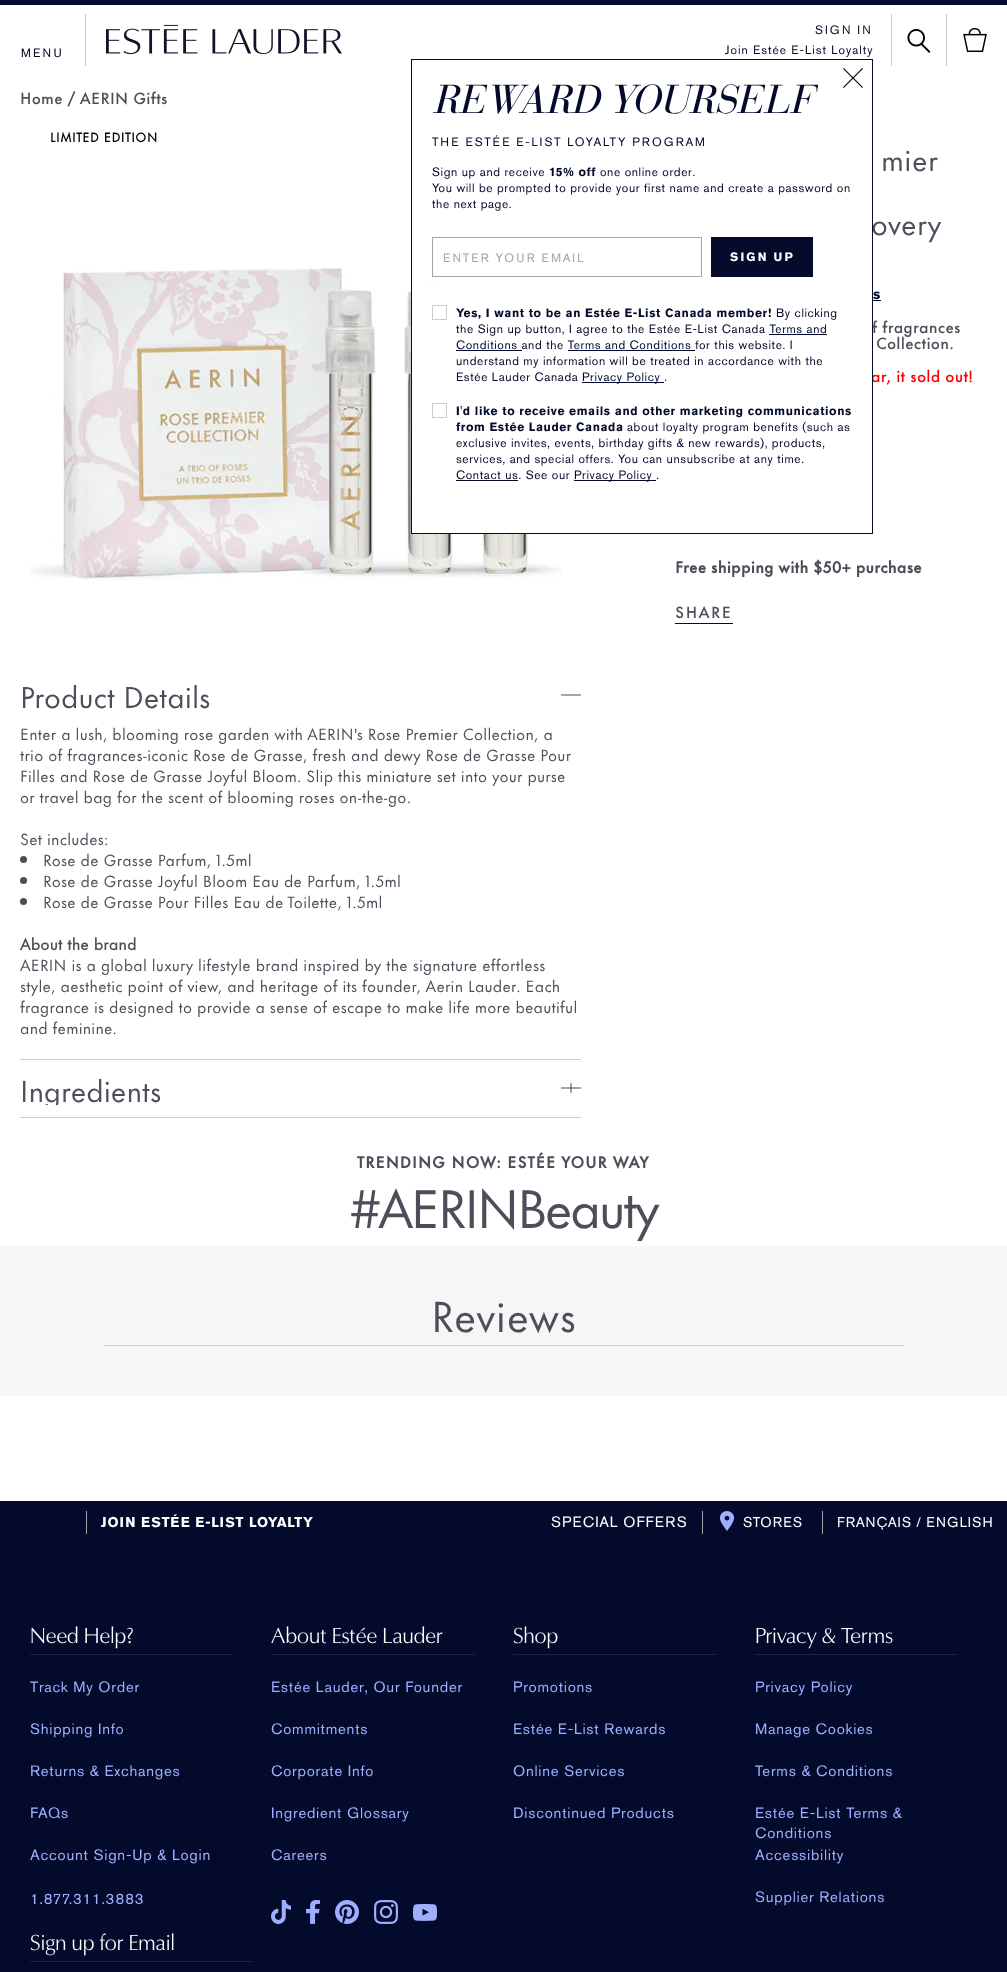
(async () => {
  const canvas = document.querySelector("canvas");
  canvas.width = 1007;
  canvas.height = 1972;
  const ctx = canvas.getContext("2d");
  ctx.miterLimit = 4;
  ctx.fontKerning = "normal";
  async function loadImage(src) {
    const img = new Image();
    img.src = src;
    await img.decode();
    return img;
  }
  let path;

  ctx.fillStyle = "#ffffff";
  ctx.fillRect(0, 0, 1007, 1972);
  ctx.fillStyle = "#040a2b";
  ctx.fillRect(0, 0, 1007, 5);
  ctx.fillStyle = "#cccccc";
  ctx.fillRect(85, 14, 1, 52);
  ctx.drawImage(await loadImage("img/1.png"), 106, 24, 236, 31);
  ctx.fillRect(946, 14, 1, 52);
  ctx.drawImage(await loadImage("img/3.png"), 963, 28, 24, 24);
  ctx.fillRect(891, 14, 1, 52);
  ctx.drawImage(await loadImage("img/4.png"), 907, 29, 24, 24);
  ctx.drawImage(await loadImage("img/5.png"), 30, 268, 531, 313);
  for (const [x, y, w, h, color] of [
    [873, 300, 8, 1, "#040a2b"],
    [675, 623, 58, 1, "#040a2b"],
    [20, 1059, 561, 1, "#cccccc"],
  ]) {
    ctx.fillStyle = color;
    ctx.fillRect(x, y, w, h);
  }
  path = new Path2D("M561 695H581");
  ctx.strokeStyle = "#000000";
  ctx.lineWidth = 0.7;
  ctx.stroke(path);
  ctx.fillStyle = "#4c4e59";
  ctx.beginPath();
  ctx.arc(23.5, 859.5, 3.5, 0, Math.PI * 2);
  ctx.fill();
  ctx.beginPath();
  ctx.arc(23.5, 880.5, 3.5, 0, Math.PI * 2);
  ctx.fill();
  ctx.beginPath();
  ctx.arc(23.5, 901.5, 3.5, 0, Math.PI * 2);
  ctx.fill();
  ctx.fillStyle = "#cccccc";
  ctx.fillRect(20, 1117, 561, 1);
  path = new Path2D("M561 1088H581M571 1083V1093");
  ctx.stroke(path);
  for (const [x, y, w, h, color] of [
    [0, 1246, 1007, 150, "#f6f6f6"],
    [104, 1345, 800, 1, "#cccccc"],
    [0, 1501, 1007, 471, "#040a2b"],
    [86, 1511, 1, 23, "#a4a4ab"],
    [702, 1511, 1, 23, "#a4a4ab"],
  ]) {
    ctx.fillStyle = color;
    ctx.fillRect(x, y, w, h);
  }
  ctx.drawImage(await loadImage("img/6.png"), 719, 1511, 16, 20);
  for (const [x, y, w, h, color] of [
    [822, 1511, 1, 23, "#a4a4ab"],
    [30, 1654, 203, 1, "#1e2341"],
    [271, 1654, 204, 1, "#1e2341"],
  ]) {
    ctx.fillStyle = color;
    ctx.fillRect(x, y, w, h);
  }
  ctx.drawImage(await loadImage("img/7.png"), 271, 1900, 20, 24);
  ctx.drawImage(await loadImage("img/8.png"), 306, 1900, 14, 24);
  ctx.drawImage(await loadImage("img/9.png"), 335, 1900, 24, 24);
  ctx.drawImage(await loadImage("img/10.png"), 374, 1900, 24, 24);
  ctx.drawImage(await loadImage("img/11.png"), 413, 1904, 24, 17);
  for (const [x, y, w, h, color] of [
    [513, 1654, 203, 1, "#1e2341"],
    [755, 1654, 203, 1, "#1e2341"],
    [30, 1961, 222, 1, "#1e2341"],
  ]) {
    ctx.fillStyle = color;
    ctx.fillRect(x, y, w, h);
  }
  ctx.letterSpacing = "1.8px";
  ctx.font = "12px 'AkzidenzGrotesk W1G'";
  ctx.fillStyle = "#01051e";
  ctx.fillText("MENU", 21, 57);
  ctx.fillStyle = "#0e122a";
  ctx.fillText("SIGN IN", 815, 34);
  ctx.letterSpacing = "1px";
  ctx.fillStyle = "#040a2b";
  ctx.fillText("Join Estée E-List Loyalty", 725, 54);
  ctx.letterSpacing = "0.25px";
  ctx.font = "500 15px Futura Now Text";
  ctx.fillStyle = "#4c4e59";
  ctx.fillText("Home / AERIN Gifts", 20, 104);
  ctx.letterSpacing = "0.6px";
  ctx.font = "bold 12px 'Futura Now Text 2'";
  ctx.fillStyle = "#000000";
  ctx.fillText("LIMITED EDITION", 50, 142);
  ctx.letterSpacing = "0.5px";
  ctx.font = "28px Futura Now Text";
  ctx.fillStyle = "#4c4e59";
  ctx.fillText("mier", 881, 171);
  ctx.fillText("overy", 871, 235);
  ctx.letterSpacing = "0.75px";
  ctx.font = "bold 14px 'AkzidenzGrotesk W1G'";
  ctx.fillStyle = "#040a2b";
  ctx.fillText("s", 873, 299);
  ctx.letterSpacing = "0.25px";
  ctx.font = "500 15px Futura Now Text";
  ctx.fillStyle = "#4c4e59";
  ctx.fillText("f fragrances", 872, 333);
  ctx.fillText("Collection.", 876, 349);
  ctx.fillStyle = "#ff0000";
  ctx.fillText("ar, it sold out!", 871, 382);
  ctx.fillStyle = "#ffffff";
  ctx.fillRect(412, 288, 460, 245);
  ctx.strokeStyle = "#040a2b";
  ctx.lineWidth = 1;
  ctx.strokeRect(411.5, 59.5, 461, 474);
  ctx.strokeStyle = "#cccccc";
  ctx.strokeRect(432.5, 403.5, 14, 14);
  ctx.fillStyle = "#040a2b";
  ctx.fillRect(574, 480, 82, 1);
  ctx.letterSpacing = "0.6px";
  ctx.font = "12px 'AkzidenzGrotesk W1G'";
  ctx.fillText("Privacy Policy .", 574, 479);
  ctx.fillText("Contact us. See our", 456, 479);
  ctx.fillRect(456, 480, 62, 1);
  for (const [text, x, y] of [
    ["services, and special offers. You can unsubscribe at any time.", 456, 463],
    ["exclusive invites, events, birthday gifts & new rewards), products,", 456, 447],
    ["about loyalty program benefits (such as", 627, 431],
  ]) {
    ctx.fillText(text, x, y);
  }
  ctx.font = "bold 12px 'AkzidenzGrotesk W1G'";
  ctx.fillText("from Estée Lauder Canada", 456, 431);
  ctx.fillText("I'd like to receive emails and other marketing communications", 456, 415);
  ctx.strokeRect(432.5, 305.5, 14, 14);
  ctx.fillRect(582, 382, 82, 1);
  ctx.font = "12px 'AkzidenzGrotesk W1G'";
  for (const [text, x, y] of [
    ["Privacy Policy .", 582, 381],
    ["Estée Lauder Canada", 456, 381],
    ["understand my information will be treated in accordance with the", 456, 365],
  ]) {
    ctx.fillText(text, x, y);
  }
  ctx.fillRect(568, 350, 127, 1);
  ctx.fillText("Conditions and the Terms and Conditions for this website. I", 456, 349);
  ctx.fillRect(456, 350, 66, 1);
  ctx.fillRect(769, 334, 58, 1);
  ctx.fillText("the Sign up button, I agree to the Estée E-List Canada Terms and", 456, 333);
  ctx.fillText("By clicking", 776, 317);
  ctx.font = "bold 12px 'AkzidenzGrotesk W1G'";
  ctx.fillText("Yes, I want to be an Estée E-List Canada member!", 456, 317);
  ctx.drawImage(await loadImage("img/2.png"), 843, 68, 20, 20);
  ctx.fillRect(711, 237, 102, 40);
  ctx.letterSpacing = "1.8px";
  ctx.fillStyle = "#ffffff";
  ctx.fillText("SIGN UP", 730, 261);
  ctx.strokeStyle = "#a4a4ab";
  ctx.strokeRect(432.5, 237.5, 269, 39);
  ctx.font = "12px 'AkzidenzGrotesk W1G'";
  ctx.fillStyle = "#a4a4ab";
  ctx.fillText("ENTER YOUR EMAIL", 443, 262);
  ctx.letterSpacing = "0.6px";
  ctx.fillStyle = "#040a2b";
  for (const [text, x, y] of [
    ["the next page.", 432, 208],
    ["You will be prompted to provide your first name and create a password on", 432, 192],
    ["one online order.", 600, 176],
  ]) {
    ctx.fillText(text, x, y);
  }
  ctx.font = "bold 12px 'AkzidenzGrotesk W1G'";
  ctx.fillText("15% off", 549, 176);
  ctx.font = "12px 'AkzidenzGrotesk W1G'";
  ctx.fillText("Sign up and receive", 432, 176);
  ctx.letterSpacing = "1.8px";
  ctx.fillText("THE ESTÉE E-LIST LOYALTY PROGRAM", 432, 146);
  ctx.letterSpacing = "-0.4px";
  ctx.font = "italic 40px 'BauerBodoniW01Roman'";
  ctx.fillText("REWARD YOURSELF", 432, 113);
  ctx.letterSpacing = "0.25px";
  ctx.font = "bold 15px Futura Now Text";
  ctx.fillStyle = "#4c4e59";
  ctx.fillText("Free shipping with $50+ purchase", 675, 573);
  ctx.letterSpacing = "1.5px";
  ctx.font = "500 15px Futura Now Text";
  ctx.fillText("SHARE", 675, 618);
  ctx.letterSpacing = "0px";
  ctx.font = "28px Futura Now Text";
  ctx.fillText("Product Details", 20, 708);
  ctx.letterSpacing = "0.25px";
  ctx.font = "15px Futura Now Text";
  for (const [text, x, y] of [
    ["Enter a lush, blooming rose garden with AERIN's Rose Premier Collection, a", 20, 740],
    ["trio of fragrances-iconic Rose de Grasse, fresh and dewy Rose de Grasse Pour", 20, 761],
    ["Filles and Rose de Grasse Joyful Bloom. Slip this miniature set into your purse", 20, 782],
    ["or travel bag for the scent of blooming roses on-the-go.", 20, 803],
    ["Set includes:", 20, 845],
    ["Rose de Grasse Parfum, 1.5ml", 43, 866],
    ["Rose de Grasse Joyful Bloom Eau de Parfum, 1.5ml", 43, 887],
    ["Rose de Grasse Pour Filles Eau de Toilette, 1.5ml", 43, 908],
  ]) {
    ctx.fillText(text, x, y);
  }
  ctx.font = "bold 15px 'Futura Now Text 2'";
  ctx.fillText("About the brand", 20, 950);
  ctx.font = "15px Futura Now Text";
  for (const [text, x, y] of [
    ["AERIN is a global luxury lifestyle brand inspired by the signature effortless", 20, 971],
    ["style, aesthetic point of view, and heritage of its founder, Aerin Lauder. Each", 20, 992],
    ["fragrance is designed to provide a sense of escape to make life more beautiful", 20, 1013],
    ["and feminine.", 20, 1034],
  ]) {
    ctx.fillText(text, x, y);
  }
  ctx.save();
  ctx.beginPath();
  ctx.rect(20, 1072, 141, 33);
  ctx.clip();
  ctx.letterSpacing = "0px";
  ctx.font = "28px Futura Now Text";
  ctx.fillText("Ingredients", 20, 1102);
  ctx.restore();
  ctx.letterSpacing = "1px";
  ctx.font = "bold 15px Futura Now Text";
  ctx.fillText("TRENDING NOW: ESTÉE YOUR WAY", 357, 1168);
  ctx.letterSpacing = "-2.5px";
  ctx.font = "50px Futura Now Text";
  ctx.fillText("#AERINBeauty", 350, 1228);
  ctx.letterSpacing = "0.75px";
  ctx.font = "40px Futura Now Text";
  ctx.fillText("Reviews", 431, 1332);
  ctx.font = "bold 14px 'AkzidenzGrotesk W1G'";
  ctx.fillStyle = "#ffffff";
  ctx.fillText("JOIN ESTÉE E-LIST LOYALTY", 101, 1527);
  ctx.font = "15px 'AkzidenzGrotesk W1G'";
  ctx.fillText("SPECIAL OFFERS", 551, 1527);
  ctx.font = "14px 'AkzidenzGrotesk W1G'";
  ctx.fillText("STORES", 743, 1527);
  ctx.fillText("FRANÇAIS / ENGLISH", 837, 1527);
  ctx.letterSpacing = "0px";
  ctx.font = "22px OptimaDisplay";
  ctx.fillText("Need Help?", 30, 1643);
  ctx.letterSpacing = "0.75px";
  ctx.font = "15px 'AkzidenzGrotesk W1G'";
  ctx.fillStyle = "#9eafff";
  for (const [text, x, y] of [
    ["Track My Order", 30, 1692],
    ["Shipping Info", 30, 1734],
    ["Returns & Exchanges", 30, 1776],
    ["FAQs", 30, 1818],
    ["Account Sign-Up & Login", 30, 1860],
    ["1.877.311.3883", 30, 1904],
  ]) {
    ctx.fillText(text, x, y);
  }
  ctx.letterSpacing = "0px";
  ctx.font = "22px OptimaDisplay";
  ctx.fillStyle = "#ffffff";
  ctx.fillText("About Estée Lauder", 271, 1643);
  ctx.letterSpacing = "0.75px";
  ctx.font = "15px 'AkzidenzGrotesk W1G'";
  ctx.fillStyle = "#9eafff";
  for (const [text, x, y] of [
    ["Estée Lauder, Our Founder", 271, 1692],
    ["Commitments", 271, 1734],
    ["Corporate Info", 271, 1776],
    ["Ingredient Glossary", 271, 1818],
    ["Careers", 271, 1860],
  ]) {
    ctx.fillText(text, x, y);
  }
  ctx.letterSpacing = "0px";
  ctx.font = "22px OptimaDisplay";
  ctx.fillStyle = "#ffffff";
  ctx.fillText("Shop", 513, 1643);
  ctx.letterSpacing = "0.75px";
  ctx.font = "15px 'AkzidenzGrotesk W1G'";
  ctx.fillStyle = "#9eafff";
  for (const [text, x, y] of [
    ["Promotions", 513, 1692],
    ["Estée E-List Rewards", 513, 1734],
    ["Online Services", 513, 1776],
    ["Discontinued Products", 513, 1818],
  ]) {
    ctx.fillText(text, x, y);
  }
  ctx.letterSpacing = "0px";
  ctx.font = "22px OptimaDisplay";
  ctx.fillStyle = "#ffffff";
  ctx.fillText("Privacy & Terms", 755, 1643);
  ctx.letterSpacing = "0.75px";
  ctx.font = "15px 'AkzidenzGrotesk W1G'";
  ctx.fillStyle = "#9eafff";
  for (const [text, x, y] of [
    ["Privacy Policy", 755, 1692],
    ["Manage Cookies", 755, 1734],
    ["Terms & Conditions", 755, 1776],
    ["Estée E-List Terms &", 755, 1818],
    ["Conditions", 755, 1838],
    ["Accessibility", 755, 1860],
    ["Supplier Relations", 755, 1902],
  ]) {
    ctx.fillText(text, x, y);
  }
  ctx.letterSpacing = "0px";
  ctx.font = "22px OptimaDisplay";
  ctx.fillStyle = "#ffffff";
  ctx.fillText("Sign up for Email", 30, 1950);
})();
